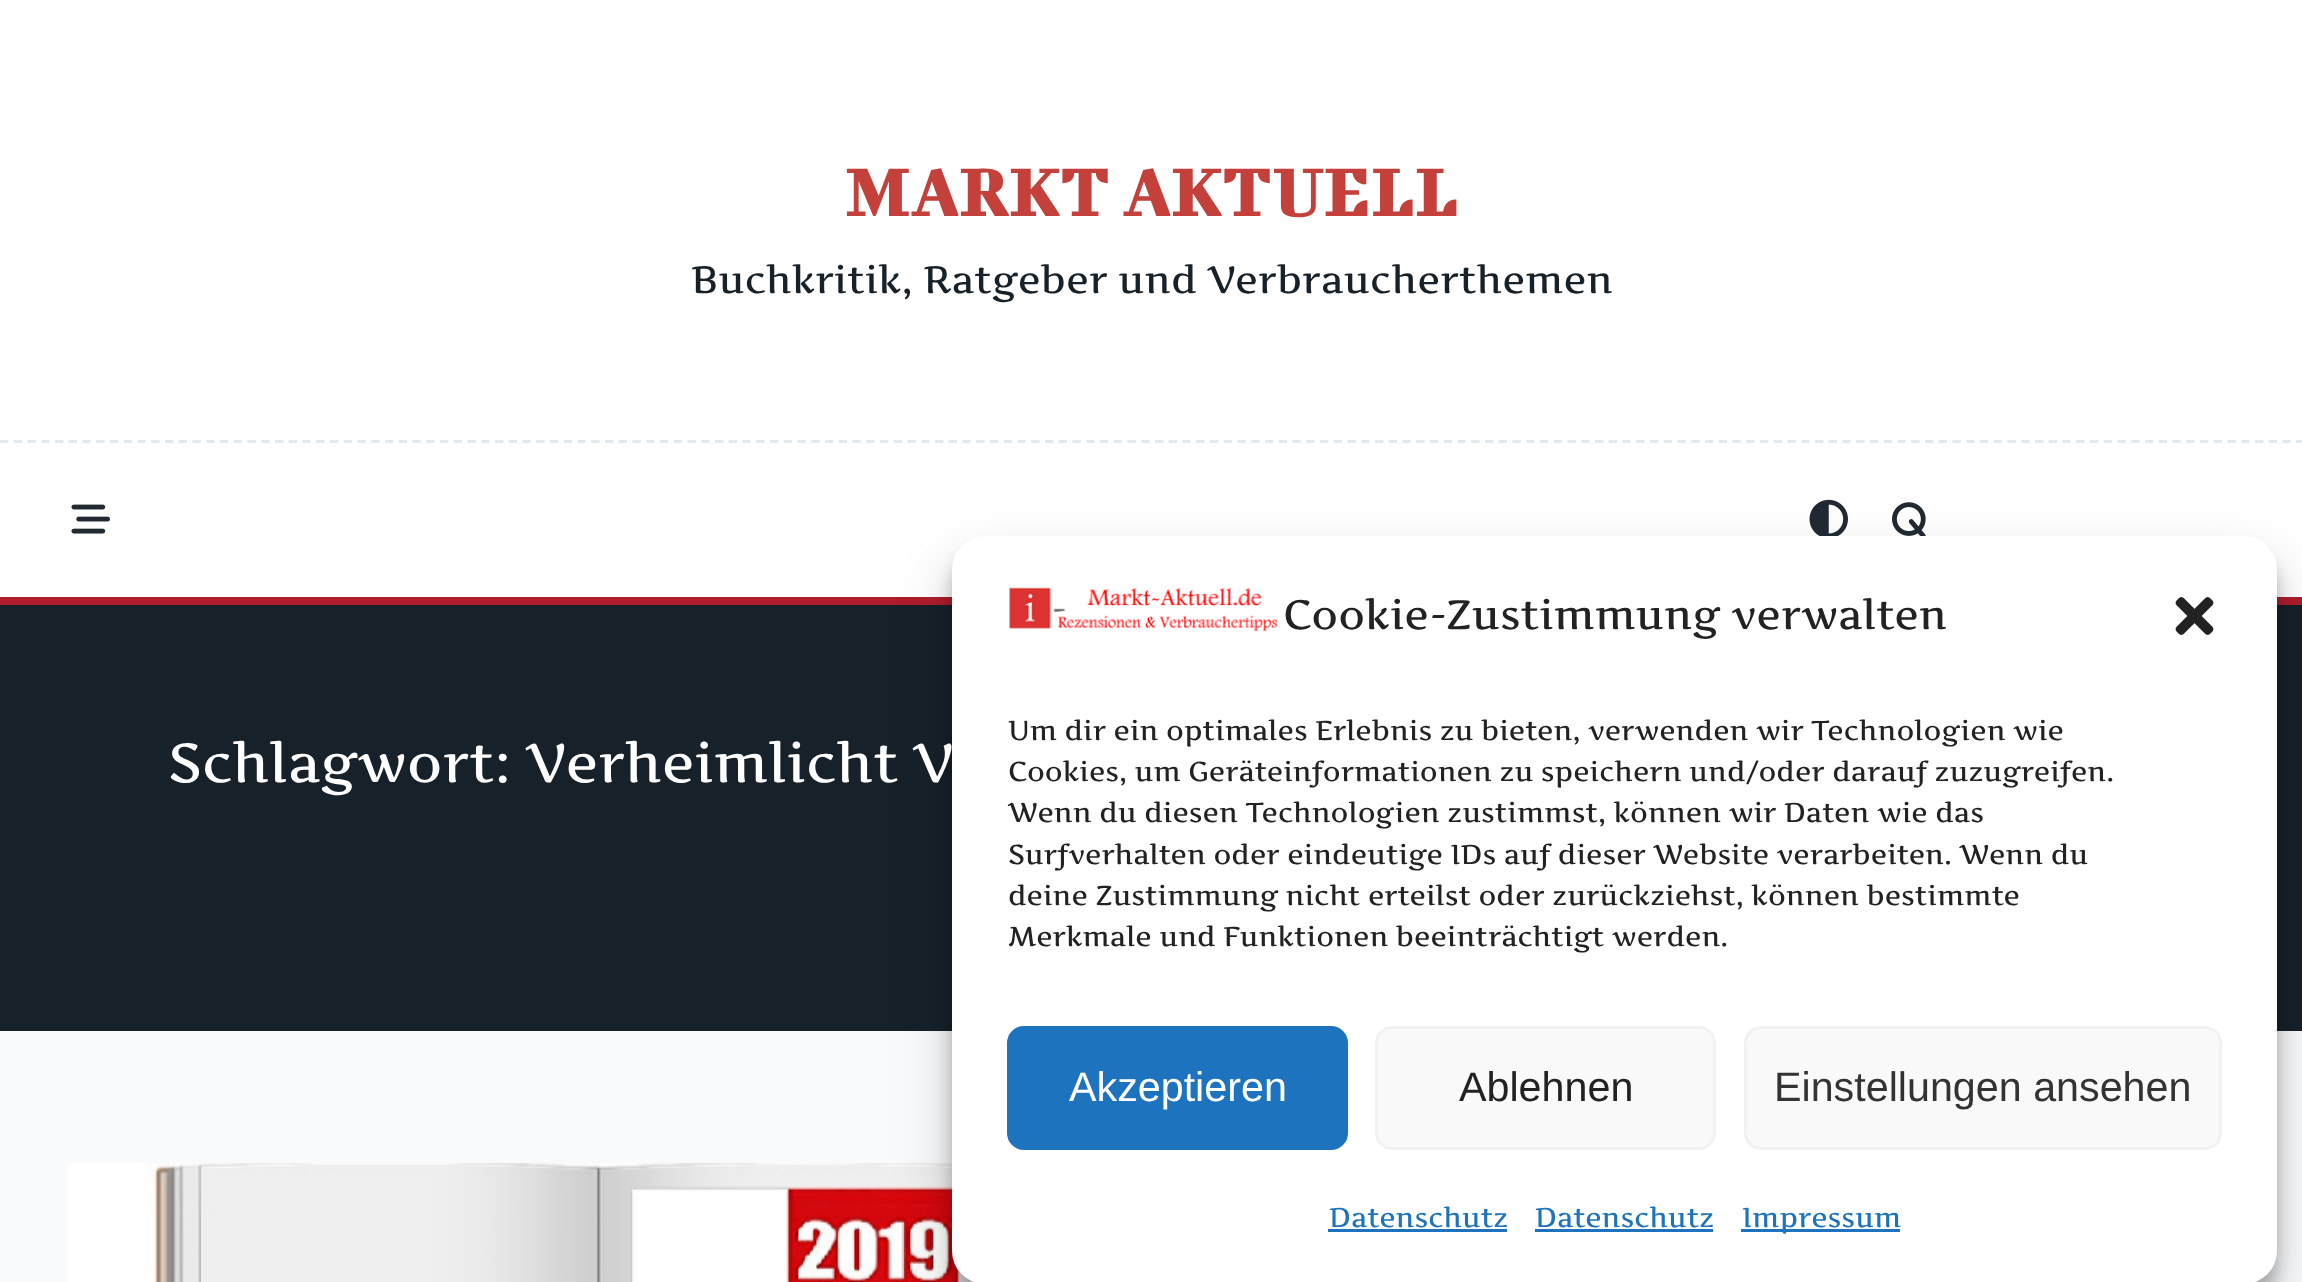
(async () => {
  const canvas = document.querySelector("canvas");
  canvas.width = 2302;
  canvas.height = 1282;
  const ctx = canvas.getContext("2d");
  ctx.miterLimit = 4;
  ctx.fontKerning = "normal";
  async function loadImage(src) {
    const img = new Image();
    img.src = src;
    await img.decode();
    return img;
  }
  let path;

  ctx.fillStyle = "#f8fafc";
  ctx.fillRect(0, 0, 2302, 1282);
  ctx.fillStyle = "#ffffff";
  ctx.fillRect(0, 0, 2302, 597);
  path = new Path2D("M0 441.5H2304.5");
  ctx.strokeStyle = "#e2e8f0";
  ctx.lineWidth = 2.8;
  ctx.setLineDash([8.25, 5.5]);
  ctx.stroke(path);
  ctx.fillStyle = "#af1d2c";
  ctx.fillRect(0, 597, 2302, 8);
  ctx.drawImage(await loadImage("img/1.png"), 71, 504, 39, 30);
  ctx.drawImage(await loadImage("img/2.png"), 1809, 499, 39, 37);
  ctx.drawImage(await loadImage("img/3.png"), 1892, 502, 34, 34);
  ctx.fillStyle = "#17212a";
  ctx.fillRect(0, 605, 2302, 426);
  ctx.fillStyle = "#ffffff";
  ctx.beginPath();
  ctx.roundRect(66, 1163, 1053, 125, 6);
  ctx.fill();
  ctx.drawImage(await loadImage("img/4.png"), 145, 1163, 829, 119);
  ctx.fillStyle = "rgba(0, 0, 0, 0.23)";
  ctx.filter = "blur(8px)";
  ctx.beginPath();
  ctx.roundRect(952, 553, 1325, 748, 33);
  ctx.fill();
  ctx.filter = "none";
  ctx.fillStyle = "rgba(0, 0, 0, 0.19)";
  ctx.filter = "blur(27.5px)";
  ctx.beginPath();
  ctx.roundRect(952, 564, 1325, 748, 33);
  ctx.fill();
  ctx.filter = "none";
  ctx.fillStyle = "#ffffff";
  ctx.beginPath();
  ctx.roundRect(952, 536, 1325, 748, 33);
  ctx.fill();
  ctx.drawImage(await loadImage("img/5.png"), 1009, 587, 268, 45);
  ctx.drawImage(await loadImage("img/6.png"), 2175, 597, 39, 38);
  ctx.fillStyle = "#1e73be";
  ctx.beginPath();
  ctx.roundRect(1008.5, 1027.5, 338, 121, 15.5);
  ctx.fill();
  ctx.strokeStyle = "#1e73be";
  ctx.lineWidth = 3;
  ctx.setLineDash([]);
  ctx.stroke();
  ctx.fillStyle = "#f9f9f9";
  ctx.beginPath();
  ctx.roundRect(1376.5, 1027.5, 338, 121, 15.5);
  ctx.fill();
  ctx.strokeStyle = "#f2f2f2";
  ctx.stroke();
  ctx.beginPath();
  ctx.roundRect(1745.5, 1027.5, 475, 121, 15.5);
  ctx.fill();
  ctx.stroke();
  for (const [x, y, w, h, color] of [
    [1328, 1229, 179, 3, "#1e73be"],
    [1535, 1229, 178, 3, "#1e73be"],
    [1741, 1229, 159, 3, "#1e73be"],
  ]) {
    ctx.fillStyle = color;
    ctx.fillRect(x, y, w, h);
  }
  ctx.font = "77px Bigshot One";
  ctx.fillStyle = "#c4403b";
  ctx.fillText("MARKT AKTUELL", 845, 216);
  ctx.font = "38.5px Artifika";
  ctx.fillStyle = "#17212a";
  ctx.fillText("Buchkritik, Ratgeber und Verbraucherthemen", 691, 293);
  ctx.font = "55px Artifika";
  ctx.fillStyle = "#ffffff";
  ctx.fillText("Schlagwort: Verheimlicht V", 168, 782);
  ctx.font = "41.25px Artifika";
  ctx.fillStyle = "#222222";
  ctx.fillText("Cookie-Zustimmung verwalten", 1283, 629);
  ctx.font = "27.5px Artifika";
  for (const [text, x, y] of [
    ["Um dir ein optimales Erlebnis zu bieten, verwenden wir Technologien wie", 1008, 740],
    ["Cookies, um Geräteinformationen zu speichern und/oder darauf zuzugreifen.", 1008, 781],
    ["Wenn du diesen Technologien zustimmst, können wir Daten wie das", 1008, 822],
    ["Surfverhalten oder eindeutige IDs auf dieser Website verarbeiten. Wenn du", 1008, 864],
    ["deine Zustimmung nicht erteilst oder zurückziehst, können bestimmte", 1008, 905],
    ["Merkmale und Funktionen beeinträchtigt werden.", 1008, 946],
  ]) {
    ctx.fillText(text, x, y);
  }
  ctx.font = "41.25px Liberation Sans";
  ctx.fillStyle = "#ffffff";
  ctx.fillText("Akzeptieren", 1069, 1101);
  ctx.fillStyle = "#222222";
  ctx.fillText("Ablehnen", 1459, 1101);
  ctx.fillStyle = "#333333";
  ctx.fillText("Einstellungen ansehen", 1774, 1101);
  ctx.font = "27.5px Artifika";
  ctx.fillStyle = "#1e73be";
  for (const [text, x, y] of [
    ["Datenschutz", 1329, 1227],
    ["Datenschutz", 1535, 1227],
    ["Impressum", 1742, 1227],
  ]) {
    ctx.fillText(text, x, y);
  }
})();
